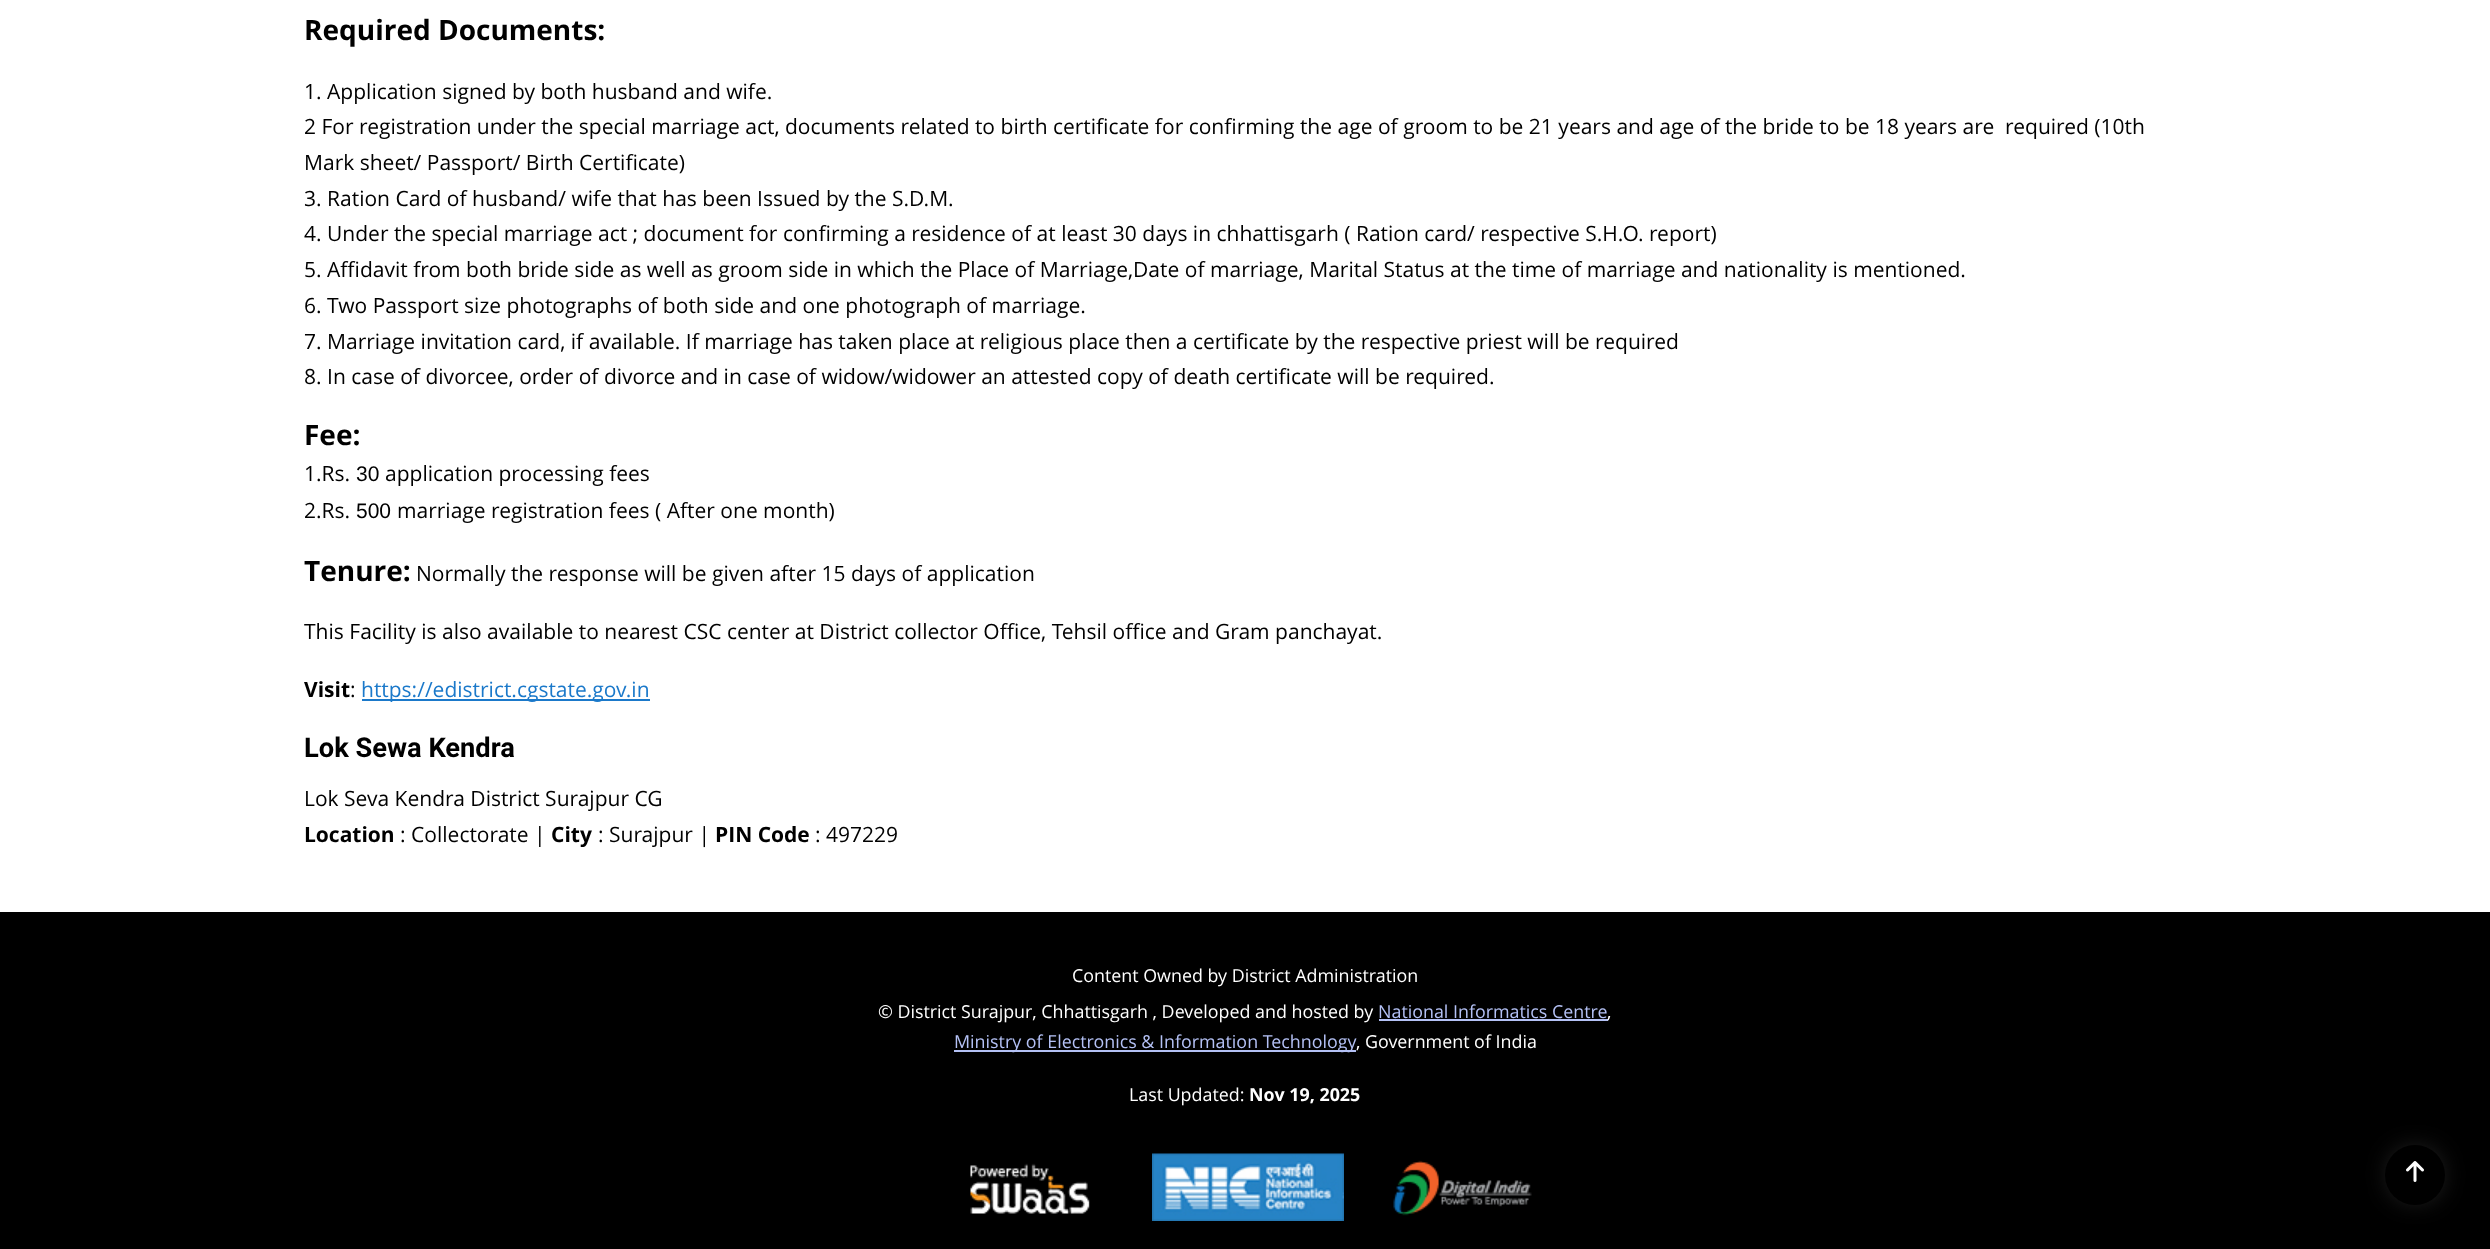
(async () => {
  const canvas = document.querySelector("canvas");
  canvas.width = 2490;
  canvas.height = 1249;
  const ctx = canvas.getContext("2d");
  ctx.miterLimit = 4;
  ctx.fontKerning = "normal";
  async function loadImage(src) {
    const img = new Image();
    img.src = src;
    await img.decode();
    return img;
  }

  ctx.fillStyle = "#ffffff";
  ctx.fillRect(0, 0, 2490, 1249);
  for (const [x, y, w, h, color] of [
    [362, 699, 288, 2, "#1b79ca"],
    [0, 912, 2490, 337, "#000000"],
    [1379, 1019, 229, 2, "#b4c1f5"],
    [954, 1050, 402, 2, "#b4c1f5"],
  ]) {
    ctx.fillStyle = color;
    ctx.fillRect(x, y, w, h);
  }
  ctx.drawImage(await loadImage("img/1.png"), 970, 1163, 120, 51);
  ctx.drawImage(await loadImage("img/2.png"), 1152, 1153, 192, 68);
  ctx.drawImage(await loadImage("img/3.png"), 1393, 1160, 139, 56);
  ctx.fillStyle = "#3c3c3c";
  ctx.filter = "blur(14px)";
  ctx.beginPath();
  ctx.roundRect(2393, 1152, 45, 45, 22.5);
  ctx.fill();
  ctx.filter = "none";
  ctx.fillStyle = "#000000";
  ctx.beginPath();
  ctx.arc(2415, 1175, 30, 0, Math.PI * 2);
  ctx.fill();
  ctx.drawImage(await loadImage("img/4.png"), 2406, 1161, 18, 21);
  ctx.font = "bold 28px Open Sans";
  ctx.fillText("Required Documents:", 304, 40);
  ctx.font = "21px Open Sans";
  for (const [text, x, y] of [
    ["1. Application signed by both husband and wife.", 304, 99],
    ["2 For registration under the special marriage act, documents related to birth certificate for confirming the age of groom to be 21 years and age of the bride to be 18 years are  required (10th", 304, 134],
    ["Mark sheet/ Passport/ Birth Certificate)", 304, 170],
    ["3. Ration Card of husband/ wife that has been Issued by the S.D.M.", 304, 206],
    ["4. Under the special marriage act ; document for confirming a residence of at least 30 days in chhattisgarh ( Ration card/ respective S.H.O. report)", 304, 241],
    ["5. Affidavit from both bride side as well as groom side in which the Place of Marriage,Date of marriage, Marital Status at the time of marriage and nationality is mentioned.", 304, 277],
    ["6. Two Passport size photographs of both side and one photograph of marriage.", 304, 313],
    ["7. Marriage invitation card, if available. If marriage has taken place at religious place then a certificate by the respective priest will be required", 304, 349],
    ["8. In case of divorcee, order of divorce and in case of widow/widower an attested copy of death certificate will be required.", 304, 384],
  ]) {
    ctx.fillText(text, x, y);
  }
  ctx.font = "bold 28px Open Sans";
  ctx.fillText("Fee:", 304, 445);
  ctx.font = "21px Open Sans";
  ctx.fillText("1.Rs.", 304, 481);
  ctx.font = "21px Liberation Sans";
  ctx.fillText("30", 356, 481);
  ctx.font = "21px Open Sans";
  ctx.fillText("application processing fees", 385, 481);
  ctx.fillText("2.Rs.", 304, 518);
  ctx.font = "21px Liberation Sans";
  ctx.fillText("500", 356, 518);
  ctx.font = "21px Open Sans";
  ctx.fillText("marriage registration fees ( After one month)", 397, 518);
  ctx.font = "bold 28px Open Sans";
  ctx.fillText("Tenure:", 304, 581);
  ctx.font = "21px Open Sans";
  ctx.fillText("Normally the response will be given after 15 days of application", 416, 581);
  ctx.fillText("This Facility is also available to nearest CSC center at District collector Office, Tehsil office and Gram panchayat.", 304, 639);
  ctx.font = "bold 21px Open Sans";
  ctx.fillText("Visit", 304, 697);
  ctx.font = "21px Open Sans";
  ctx.fillText(":", 350, 697);
  ctx.fillStyle = "#1b79ca";
  ctx.fillText("https://edistrict.cgstate.gov.in", 361, 697);
  ctx.font = "bold 27.25px Roboto";
  ctx.fillStyle = "#000000";
  ctx.fillText("Lok Sewa Kendra", 304, 757);
  ctx.font = "21px Open Sans";
  ctx.fillText("Lok Seva Kendra District Surajpur CG", 304, 806);
  ctx.font = "bold 21px Open Sans";
  ctx.fillText("Location", 304, 842);
  ctx.font = "21px Open Sans";
  ctx.fillText(": Collectorate |", 400, 842);
  ctx.font = "bold 21px Open Sans";
  ctx.fillText("City", 551, 842);
  ctx.font = "21px Open Sans";
  ctx.fillText(": Surajpur |", 598, 842);
  ctx.font = "bold 21px Open Sans";
  ctx.fillText("PIN Code", 715, 842);
  ctx.font = "21px Open Sans";
  ctx.fillText(": 497229", 815, 842);
  ctx.font = "17.85px Open Sans";
  ctx.fillStyle = "#ffffff";
  ctx.fillText("Content Owned by District Administration", 1072, 982);
  ctx.fillText("© District Surajpur, Chhattisgarh , Developed and hosted by", 878, 1018);
  ctx.fillStyle = "#b4c1f5";
  ctx.fillText("National Informatics Centre", 1378, 1018);
  ctx.fillStyle = "#ffffff";
  ctx.fillText(",", 1607, 1018);
  ctx.fillStyle = "#b4c1f5";
  ctx.fillText("Ministry of Electronics & Information Technology", 954, 1048);
  ctx.fillStyle = "#ffffff";
  ctx.fillText(", Government of India", 1356, 1048);
  ctx.fillText("Last Updated:", 1129, 1101);
  ctx.font = "bold 17.85px Open Sans";
  ctx.fillText("Nov 19, 2025", 1249, 1101);
})();
